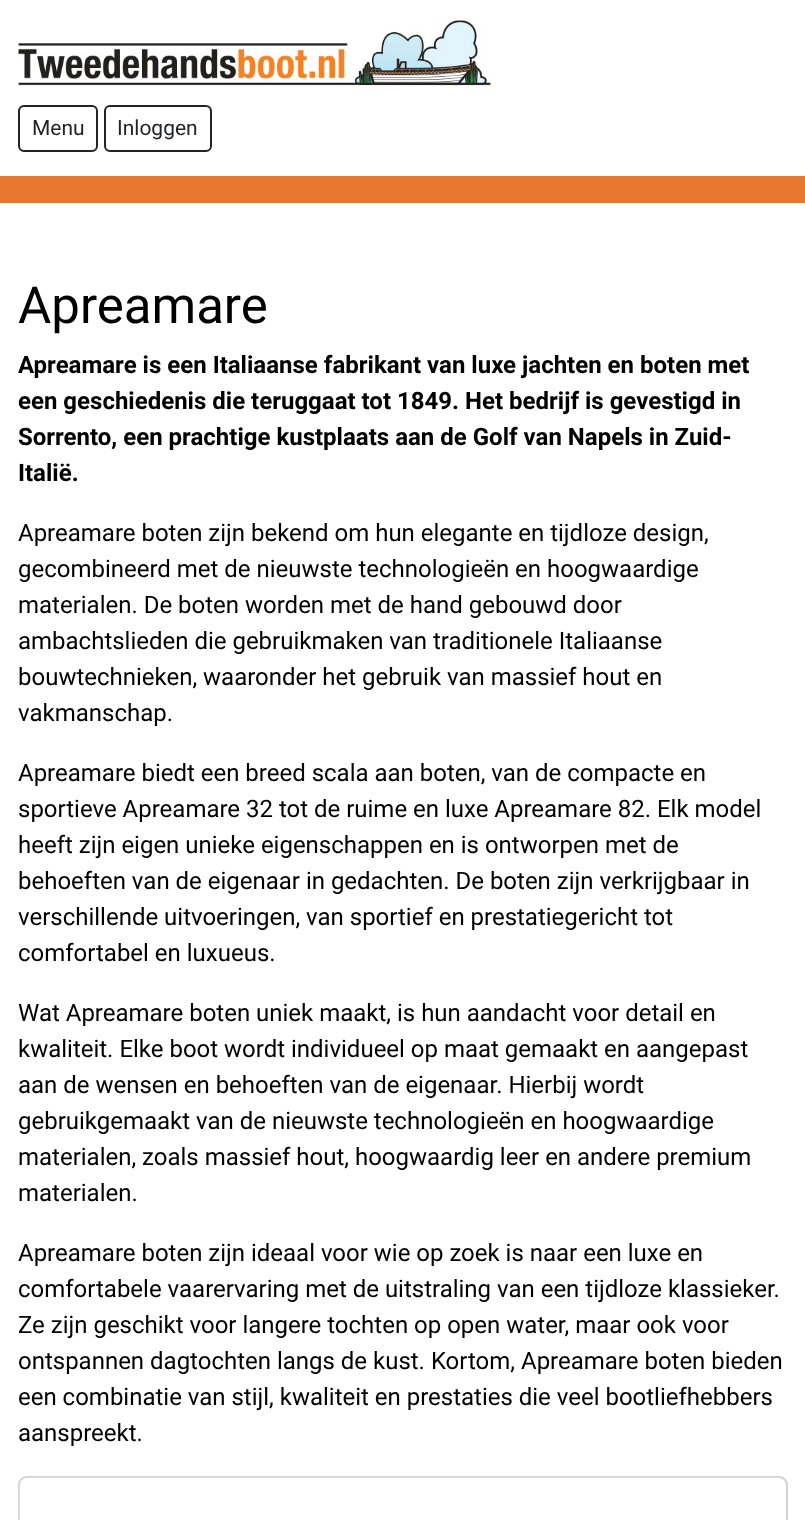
(async () => {
  const canvas = document.querySelector("canvas");
  canvas.width = 805;
  canvas.height = 1520;
  const ctx = canvas.getContext("2d");
  ctx.miterLimit = 4;
  ctx.fontKerning = "normal";
  async function loadImage(src) {
    const img = new Image();
    img.src = src;
    await img.decode();
    return img;
  }

  ctx.fillStyle = "#ffffff";
  ctx.fillRect(0, 0, 805, 1520);
  ctx.drawImage(await loadImage("img/1.png"), 18, 20, 473, 67);
  ctx.beginPath();
  ctx.roundRect(19, 106, 78, 45, 5);
  ctx.strokeStyle = "#212529";
  ctx.lineWidth = 2;
  ctx.stroke();
  ctx.beginPath();
  ctx.roundRect(105, 106, 106, 45, 5);
  ctx.stroke();
  ctx.fillStyle = "#e5772e";
  ctx.fillRect(0, 176, 805, 27);
  ctx.beginPath();
  ctx.roundRect(19, 1477, 768, 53, 8);
  ctx.strokeStyle = "#d2d2d2";
  ctx.stroke();
  ctx.drawImage(await loadImage("img/2.png"), 19, 1477, 762, 43);
  ctx.font = "21px Roboto";
  ctx.fillStyle = "#212529";
  ctx.fillText("Menu", 32, 135);
  ctx.fillText("Inloggen", 117, 135);
  ctx.font = "51px Roboto";
  ctx.fillStyle = "#000000";
  ctx.fillText("Apreamare", 18, 323);
  ctx.font = "bold 24px Roboto";
  for (const [text, x, y] of [
    ["Apreamare is een Italiaanse fabrikant van luxe jachten en boten met", 18, 373],
    ["een geschiedenis die teruggaat tot 1849. Het bedrijf is gevestigd in", 18, 409],
    ["Sorrento, een prachtige kustplaats aan de Golf van Napels in Zuid-", 18, 445],
    ["Italië.", 18, 481],
  ]) {
    ctx.fillText(text, x, y);
  }
  ctx.font = "24px Roboto";
  for (const [text, x, y] of [
    ["Apreamare boten zijn bekend om hun elegante en tijdloze design,", 18, 541],
    ["gecombineerd met de nieuwste technologieën en hoogwaardige", 18, 577],
    ["materialen. De boten worden met de hand gebouwd door", 18, 613],
    ["ambachtslieden die gebruikmaken van traditionele Italiaanse", 18, 649],
    ["bouwtechnieken, waaronder het gebruik van massief hout en", 18, 685],
    ["vakmanschap.", 18, 721],
    ["Apreamare biedt een breed scala aan boten, van de compacte en", 18, 781],
    ["sportieve Apreamare 32 tot de ruime en luxe Apreamare 82. Elk model", 18, 817],
    ["heeft zijn eigen unieke eigenschappen en is ontworpen met de", 18, 853],
    ["behoeften van de eigenaar in gedachten. De boten zijn verkrijgbaar in", 18, 889],
    ["verschillende uitvoeringen, van sportief en prestatiegericht tot", 18, 925],
    ["comfortabel en luxueus.", 18, 961],
    ["Wat Apreamare boten uniek maakt, is hun aandacht voor detail en", 18, 1021],
    ["kwaliteit. Elke boot wordt individueel op maat gemaakt en aangepast", 18, 1057],
    ["aan de wensen en behoeften van de eigenaar. Hierbij wordt", 18, 1093],
    ["gebruikgemaakt van de nieuwste technologieën en hoogwaardige", 18, 1129],
    ["materialen, zoals massief hout, hoogwaardig leer en andere premium", 18, 1165],
    ["materialen.", 18, 1201],
    ["Apreamare boten zijn ideaal voor wie op zoek is naar een luxe en", 18, 1261],
    ["comfortabele vaarervaring met de uitstraling van een tijdloze klassieker.", 18, 1297],
    ["Ze zijn geschikt voor langere tochten op open water, maar ook voor", 18, 1333],
    ["ontspannen dagtochten langs de kust. Kortom, Apreamare boten bieden", 18, 1369],
    ["een combinatie van stijl, kwaliteit en prestaties die veel bootliefhebbers", 18, 1405],
    ["aanspreekt.", 18, 1441],
  ]) {
    ctx.fillText(text, x, y);
  }
})();
